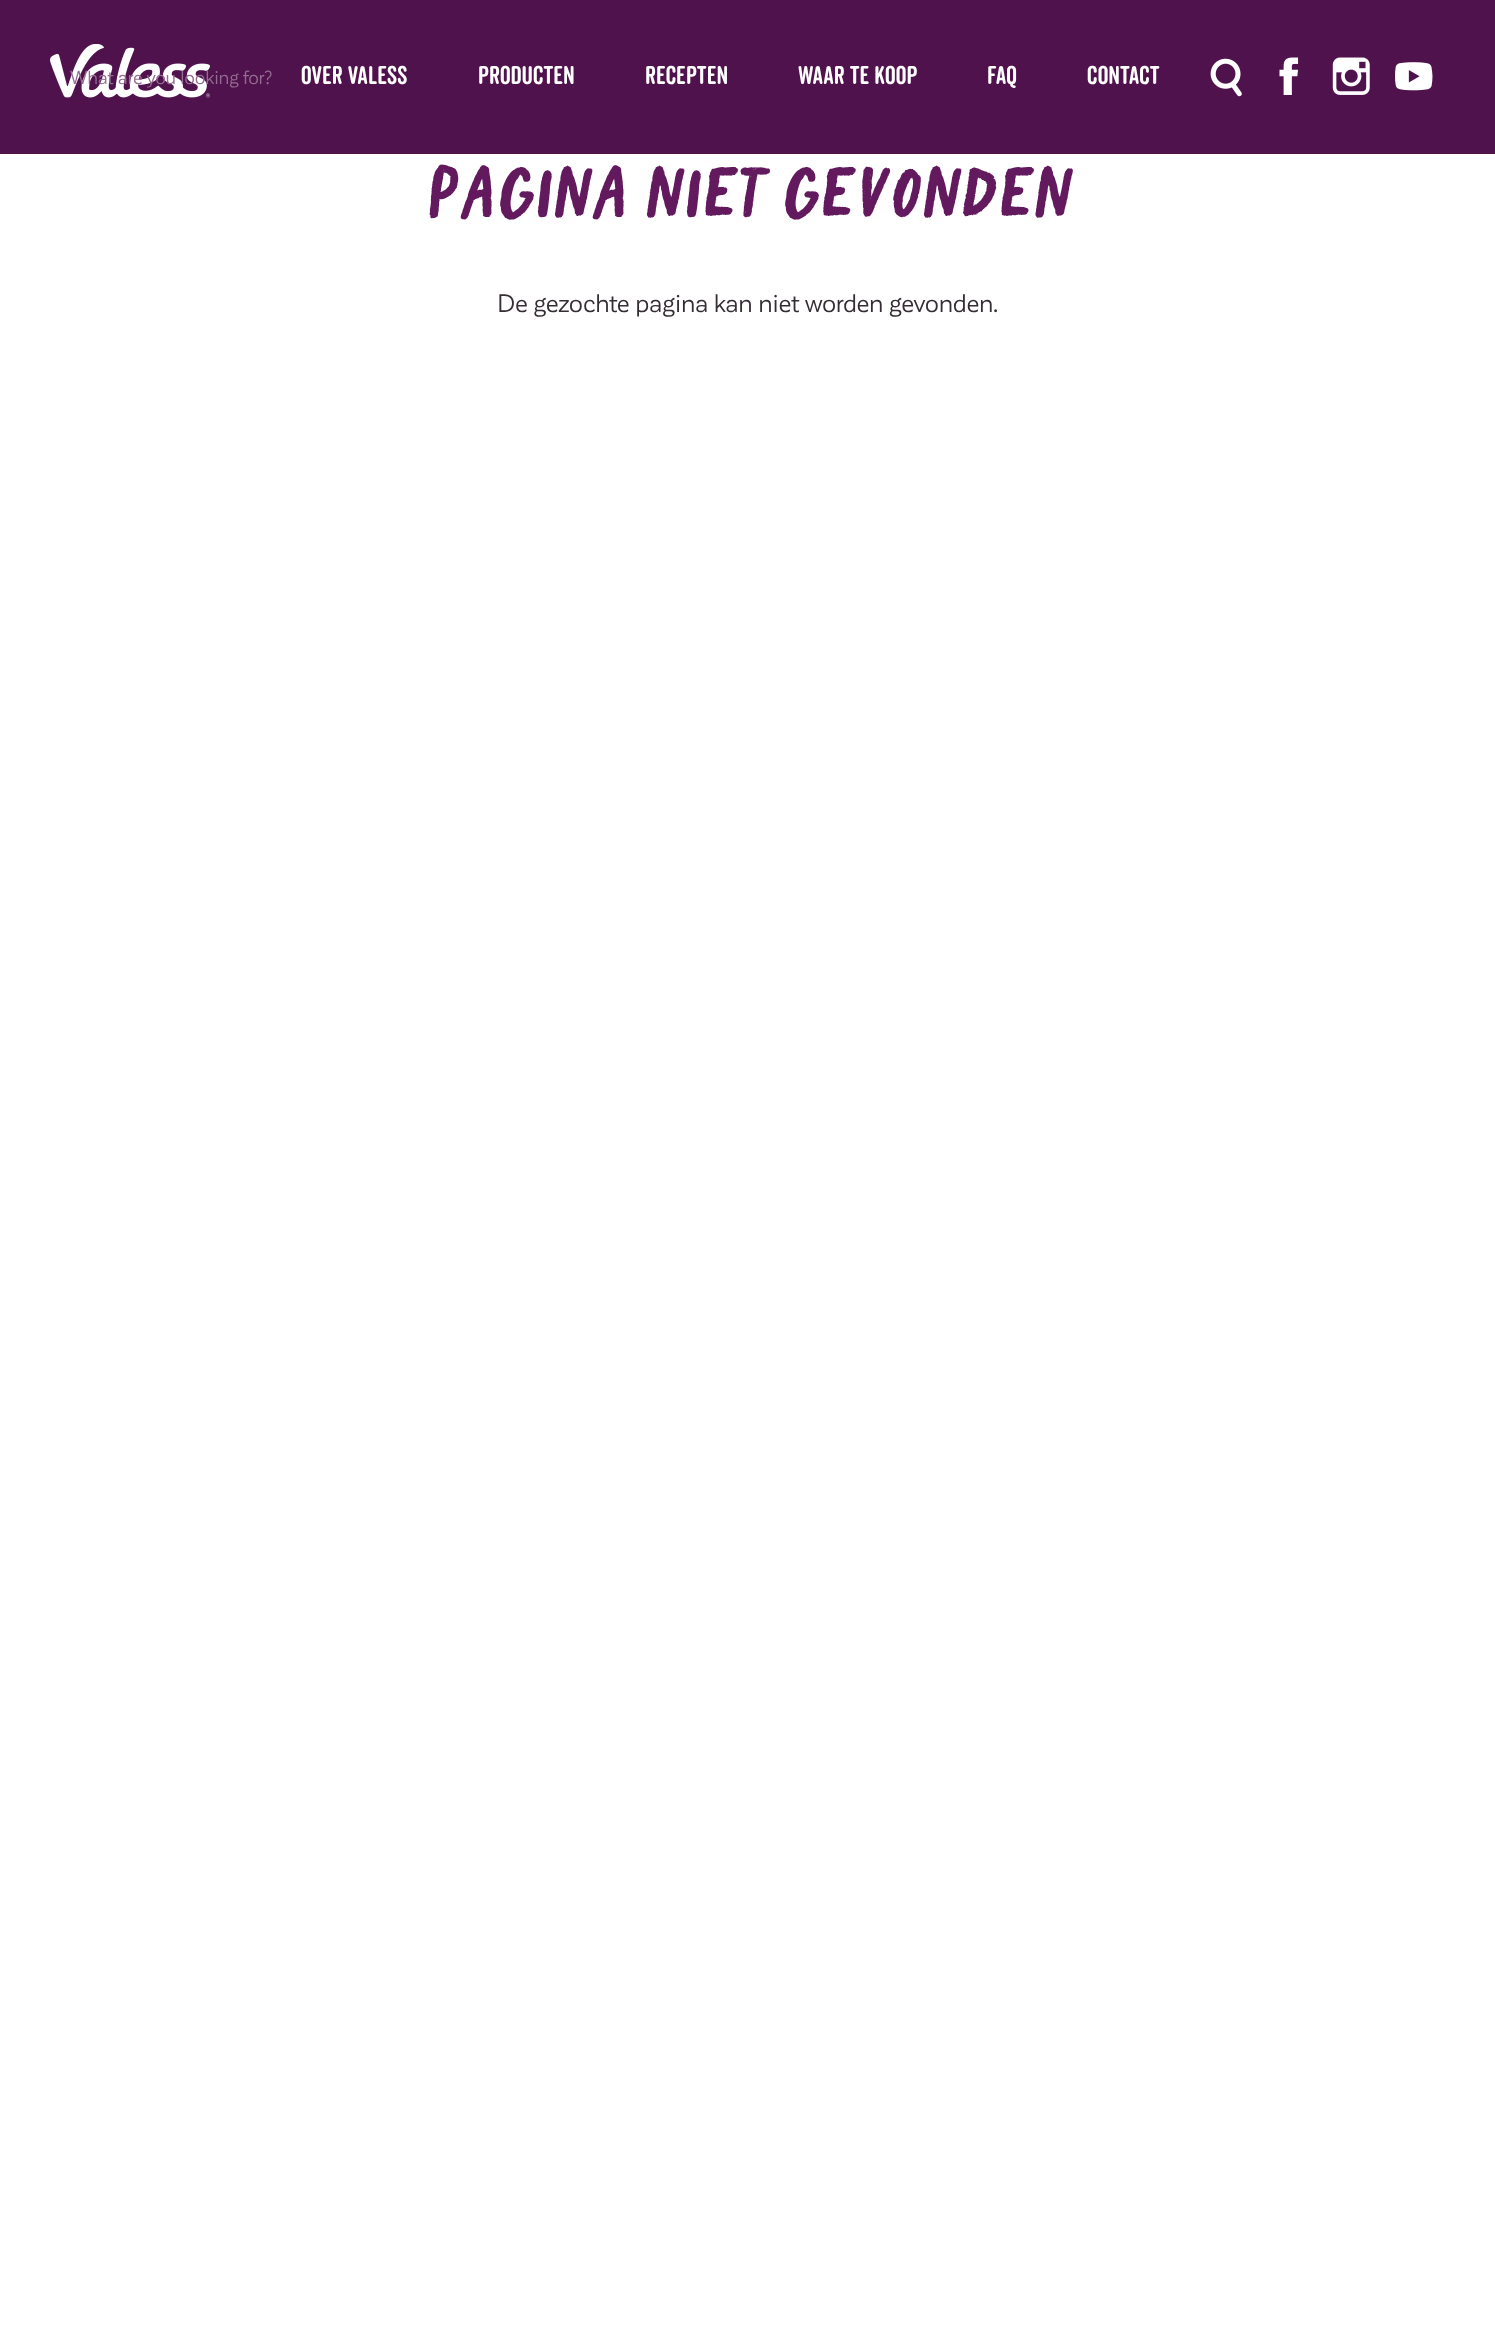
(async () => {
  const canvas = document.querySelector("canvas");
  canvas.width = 1495;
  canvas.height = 2333;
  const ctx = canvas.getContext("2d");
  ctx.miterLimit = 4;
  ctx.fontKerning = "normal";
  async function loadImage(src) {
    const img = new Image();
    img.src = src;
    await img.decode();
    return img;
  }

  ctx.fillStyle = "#ffffff";
  ctx.fillRect(0, 0, 1495, 2333);
  ctx.fillStyle = "#50124d";
  ctx.fillRect(0, 0, 1495, 154);
  ctx.drawImage(await loadImage("img/1.png"), 50, 44, 160, 54);
  ctx.drawImage(await loadImage("img/2.png"), 1210, 58, 32, 39);
  ctx.drawImage(await loadImage("img/3.png"), 1279, 57, 20, 38);
  ctx.drawImage(await loadImage("img/4.png"), 1332, 57, 38, 38);
  ctx.drawImage(await loadImage("img/5.png"), 1395, 62, 38, 29);
  ctx.font = "800 25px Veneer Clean";
  ctx.fillStyle = "#ffffff";
  for (const [text, x, y] of [
    ["Over Valess", 301, 84],
    ["Producten", 478, 84],
    ["Recepten", 645, 84],
    ["Waar te koop", 798, 84],
    ["FAQ", 987, 84],
    ["Contact", 1087, 84],
  ]) {
    ctx.fillText(text, x, y);
  }
  ctx.font = "18.75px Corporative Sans";
  ctx.fillStyle = "#936c91";
  ctx.fillText("What are you looking for?", 70, 84);
  ctx.font = "112.5px 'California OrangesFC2'";
  ctx.fillStyle = "#62195e";
  ctx.fillText("Pagina niet gevonden", 425, 217);
  ctx.font = "25px Corporative Sans";
  ctx.fillStyle = "#342d34";
  ctx.fillText("De gezochte pagina kan niet worden gevonden.", 497, 312);
})();
